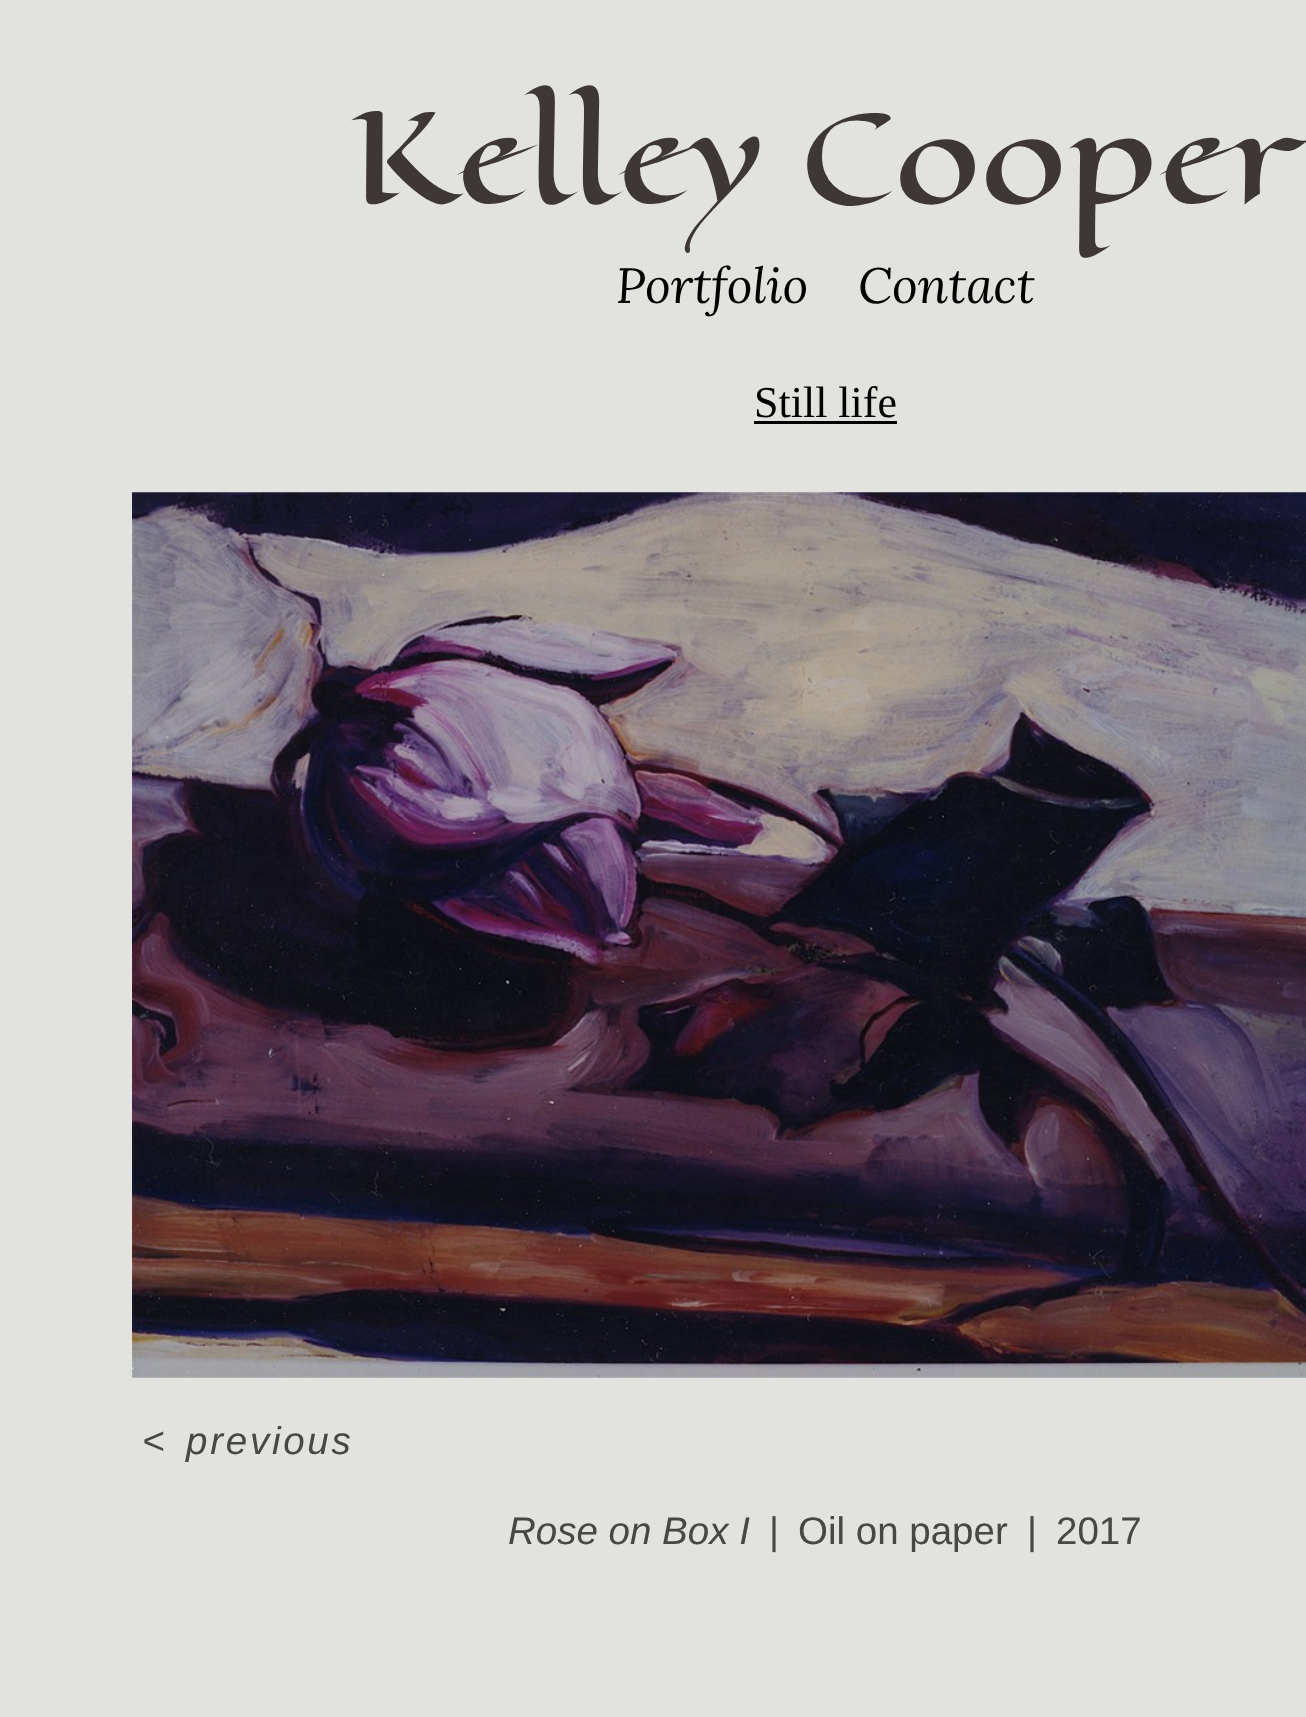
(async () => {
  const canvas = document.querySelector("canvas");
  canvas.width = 1306;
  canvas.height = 1717;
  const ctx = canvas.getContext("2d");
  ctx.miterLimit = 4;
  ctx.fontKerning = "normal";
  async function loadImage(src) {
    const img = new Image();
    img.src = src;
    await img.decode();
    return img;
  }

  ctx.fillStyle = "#e2e2df";
  ctx.fillRect(0, 0, 1306, 1717);
  ctx.fillStyle = "#000000";
  ctx.fillRect(754, 421, 143, 3);
  ctx.drawImage(await loadImage("img/1.png"), 132, 492, 1174, 886);
  ctx.font = "123.75px Eagle Lake";
  ctx.fillStyle = "#3e3737";
  ctx.fillText("Kelley Cooper", 350, 202);
  ctx.font = "italic 49.5px Lora";
  ctx.fillStyle = "#000000";
  ctx.fillText("Portfolio", 616, 303);
  ctx.fillText("Contact", 858, 303);
  ctx.font = "44px Liberation Serif";
  ctx.fillText("Still life", 754, 417);
  ctx.letterSpacing = "2.75px";
  ctx.font = "italic 38.5px Liberation Sans";
  ctx.fillStyle = "#494646";
  ctx.fillText("<", 142, 1454);
  ctx.fillText("previous", 186, 1454);
  ctx.letterSpacing = "0px";
  ctx.fillText("Rose on Box I", 508, 1544);
  ctx.font = "38.5px Liberation Sans";
  for (const [text, x, y] of [
    ["|", 769, 1544],
    ["Oil on paper", 798, 1544],
    ["|", 1027, 1544],
    ["2017", 1056, 1544],
  ]) {
    ctx.fillText(text, x, y);
  }
})();
